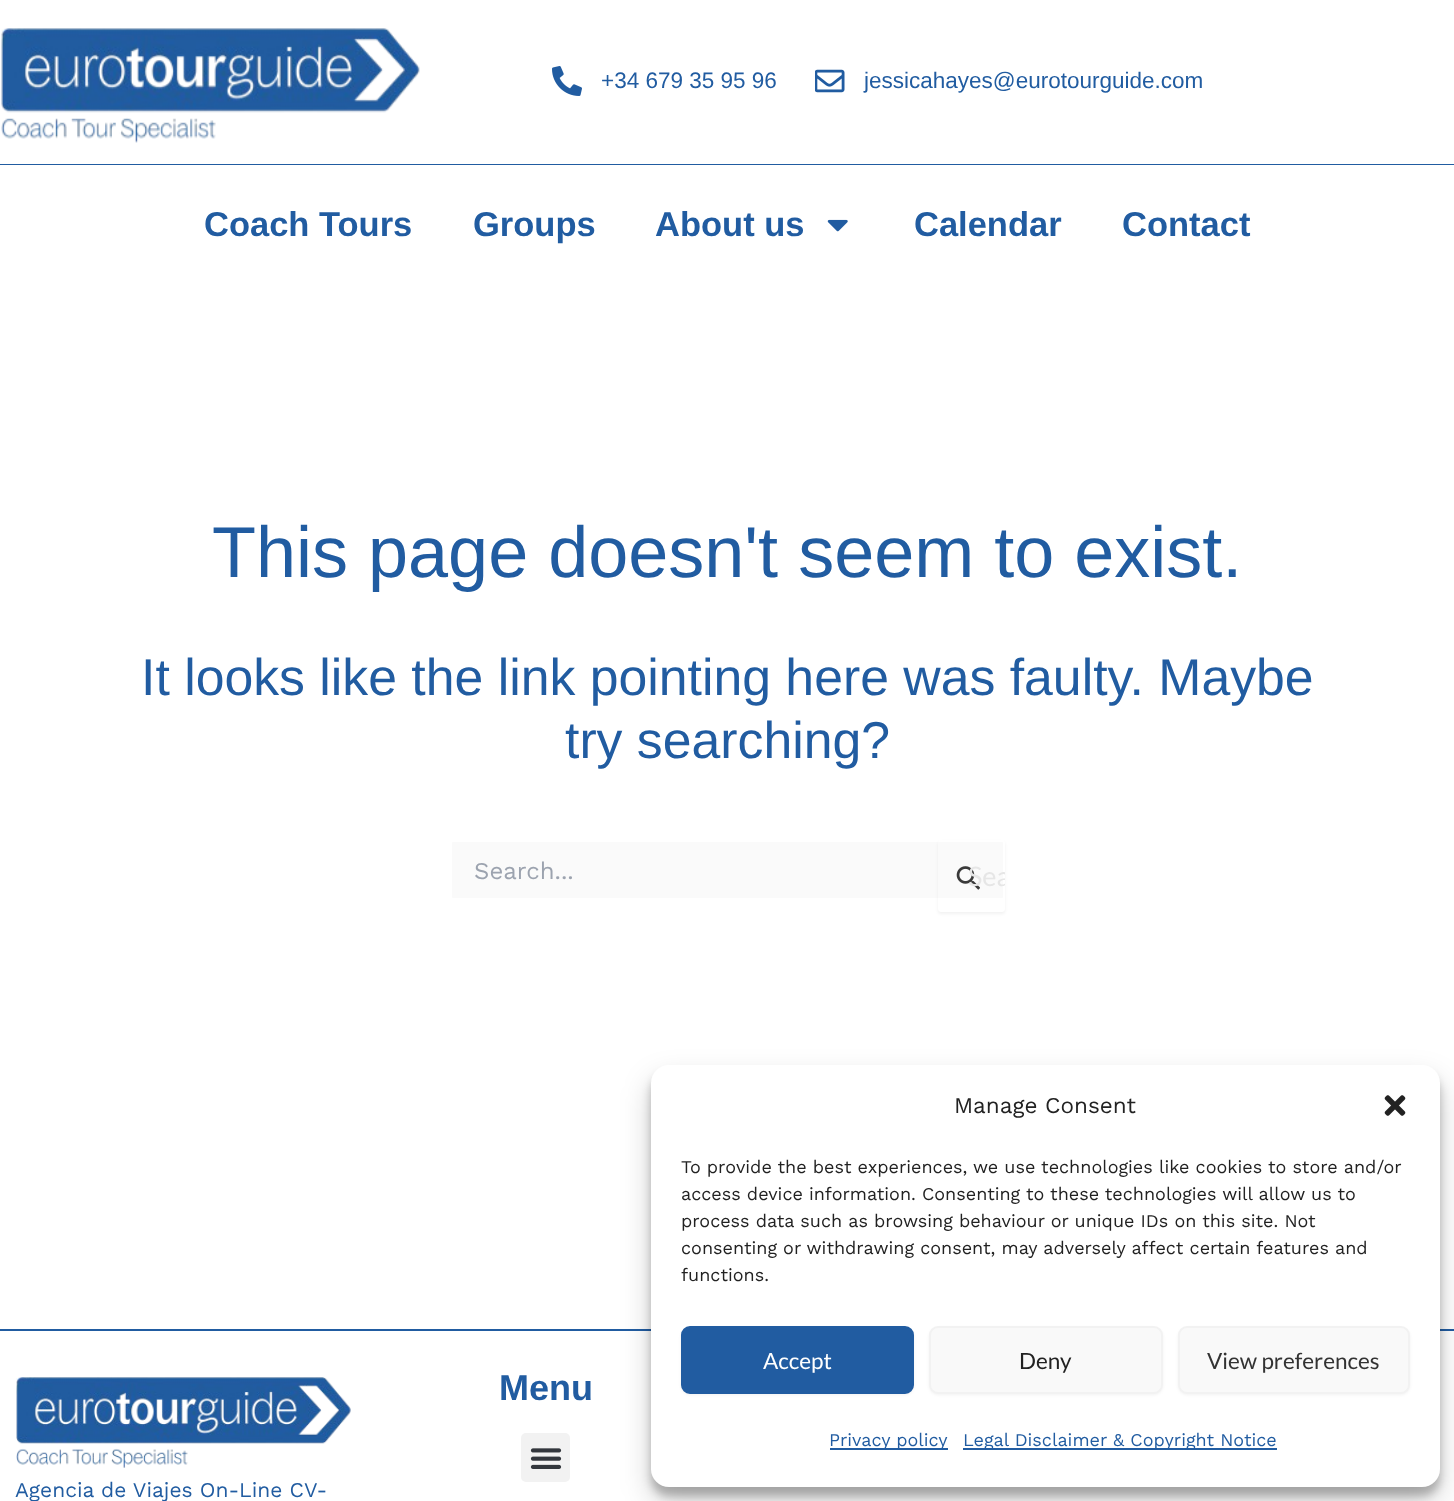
(async () => {
  const canvas = document.querySelector("canvas");
  canvas.width = 1454;
  canvas.height = 1501;
  const ctx = canvas.getContext("2d");
  ctx.miterLimit = 4;
  ctx.fontKerning = "normal";
  async function loadImage(src) {
    const img = new Image();
    img.src = src;
    await img.decode();
    return img;
  }
  let path;

  ctx.fillStyle = "#ffffff";
  ctx.fillRect(0, 0, 1454, 1501);
  ctx.fillStyle = "#215ca1";
  ctx.fillRect(0, 164, 1454, 1);
  ctx.drawImage(await loadImage("img/1.png"), 1, 28, 419, 115);
  ctx.drawImage(await loadImage("img/2.png"), 552, 66, 30, 30);
  ctx.drawImage(await loadImage("img/3.png"), 815, 69, 30, 24);
  ctx.drawImage(await loadImage("img/4.png"), 827, 219, 21, 13);
  ctx.fillStyle = "#fafafa";
  ctx.beginPath();
  ctx.roundRect(451, 841, 553, 58, 2);
  ctx.fill();
  ctx.strokeStyle = "#ffffff";
  ctx.lineWidth = 2;
  ctx.stroke();
  ctx.drawImage(await loadImage("img/5.png"), 956, 866, 24, 24);
  ctx.save();
  path = new Path2D("M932 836H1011V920H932ZM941 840H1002C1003.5 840 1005 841.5 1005 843V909C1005 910.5 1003.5 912 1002 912H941C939.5 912 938 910.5 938 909V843C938 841.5 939.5 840 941 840Z");
  ctx.clip(path, "evenodd");
  ctx.fillStyle = "rgba(0, 0, 0, 0.05)";
  ctx.filter = "blur(1.5px)";
  ctx.beginPath();
  ctx.roundRect(938, 842, 67, 72, 3);
  ctx.fill();
  ctx.filter = "none";
  ctx.restore();
  ctx.fillStyle = "#215ca1";
  ctx.fillRect(0, 1329, 651, 2);
  ctx.fillRect(1440, 1329, 14, 2);
  ctx.fillStyle = "#f2f2f2";
  ctx.beginPath();
  ctx.roundRect(521, 1433, 49, 49, 5);
  ctx.fill();
  ctx.drawImage(await loadImage("img/6.png"), 530, 1448, 32, 21);
  ctx.drawImage(await loadImage("img/7.png"), 16, 1377, 335, 91);
  ctx.fillStyle = "rgba(0, 0, 0, 0.23)";
  ctx.filter = "blur(4.5px)";
  ctx.beginPath();
  ctx.roundRect(651, 1074, 789, 422, 18);
  ctx.fill();
  ctx.filter = "none";
  ctx.fillStyle = "rgba(0, 0, 0, 0.19)";
  ctx.filter = "blur(15px)";
  ctx.beginPath();
  ctx.roundRect(651, 1080, 789, 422, 18);
  ctx.fill();
  ctx.filter = "none";
  ctx.fillStyle = "#ffffff";
  ctx.beginPath();
  ctx.roundRect(651, 1065, 789, 422, 18);
  ctx.fill();
  ctx.drawImage(await loadImage("img/8.png"), 1384, 1095, 22, 21);
  ctx.fillStyle = "rgba(0, 0, 0, 0.05)";
  ctx.filter = "blur(1.5px)";
  ctx.beginPath();
  ctx.roundRect(681, 1328, 233, 67, 9);
  ctx.fill();
  ctx.filter = "none";
  ctx.fillStyle = "#215ca1";
  ctx.beginPath();
  ctx.roundRect(682, 1327, 231, 66, 8);
  ctx.fill();
  ctx.strokeStyle = "#215ca1";
  ctx.stroke();
  ctx.fillStyle = "rgba(0, 0, 0, 0.05)";
  ctx.filter = "blur(1.5px)";
  ctx.beginPath();
  ctx.roundRect(929, 1328, 234, 67, 9);
  ctx.fill();
  ctx.filter = "none";
  ctx.fillStyle = "#f9f9f9";
  ctx.beginPath();
  ctx.roundRect(930, 1327, 232, 66, 8);
  ctx.fill();
  ctx.strokeStyle = "#f2f2f2";
  ctx.stroke();
  ctx.fillStyle = "rgba(0, 0, 0, 0.05)";
  ctx.filter = "blur(1.5px)";
  ctx.beginPath();
  ctx.roundRect(1178, 1328, 232, 67, 9);
  ctx.fill();
  ctx.filter = "none";
  ctx.fillStyle = "#f9f9f9";
  ctx.beginPath();
  ctx.roundRect(1179, 1327, 230, 66, 8);
  ctx.fill();
  ctx.stroke();
  ctx.fillStyle = "#215ca1";
  ctx.fillRect(830, 1448, 118, 2);
  ctx.fillRect(963, 1448, 314, 2);
  ctx.font = "22.5px Liberation Sans";
  ctx.fillText("+34 679 35 95 96", 601, 88);
  ctx.fillText("jessicahayes@eurotourguide.com", 864, 88);
  ctx.font = "bold 34.5px Liberation Sans";
  for (const [text, x, y] of [
    ["Coach Tours", 204, 236],
    ["Groups", 473, 236],
    ["About us", 655, 236],
    ["Calendar", 914, 236],
    ["Contact", 1122, 236],
  ]) {
    ctx.fillText(text, x, y);
  }
  ctx.font = "72px Liberation Sans";
  ctx.fillText("This page doesn't seem to exist.", 212, 577);
  ctx.font = "51.75px Liberation Sans";
  ctx.fillText("It looks like the link pointing here was faulty. Maybe", 141, 695);
  ctx.fillText("try searching?", 565, 758);
  ctx.font = "24px Work Sans";
  ctx.fillStyle = "#9ca3af";
  ctx.fillText("Search...", 474, 879);
  ctx.save();
  ctx.beginPath();
  ctx.roundRect(938, 840, 67, 72, 3);
  ctx.clip();
  ctx.font = "27px Lato";
  ctx.fillStyle = "#e6e6e6";
  ctx.fillText("Sea", 968, 886);
  ctx.restore();
  ctx.font = "bold 36px Liberation Sans";
  ctx.fillStyle = "#215ca1";
  ctx.fillText("Menu", 499, 1400);
  ctx.font = "21px Work Sans";
  ctx.fillText("Agencia de Viajes On-Line CV-", 15, 1497);
  ctx.font = "22.5px Work Sans";
  ctx.fillStyle = "#222222";
  ctx.fillText("Manage Consent", 954, 1113);
  ctx.font = "18px Work Sans";
  for (const [text, x, y] of [
    ["To provide the best experiences, we use technologies like cookies to store and/or", 681, 1173],
    ["access device information. Consenting to these technologies will allow us to", 681, 1200],
    ["process data such as browsing behaviour or unique IDs on this site. Not", 681, 1227],
    ["consenting or withdrawing consent, may adversely affect certain features and", 681, 1254],
    ["functions.", 681, 1281],
  ]) {
    ctx.fillText(text, x, y);
  }
  ctx.font = "22.5px Lato";
  ctx.fillStyle = "#ffffff";
  ctx.fillText("Accept", 763, 1369);
  ctx.fillStyle = "#222222";
  ctx.fillText("Deny", 1019, 1369);
  ctx.fillStyle = "#333333";
  ctx.fillText("View preferences", 1207, 1369);
  ctx.font = "18px Work Sans";
  ctx.fillStyle = "#215ca1";
  ctx.fillText("Privacy policy", 829, 1446);
  ctx.fillText("Legal Disclaimer & Copyright Notice", 963, 1446);
})();
